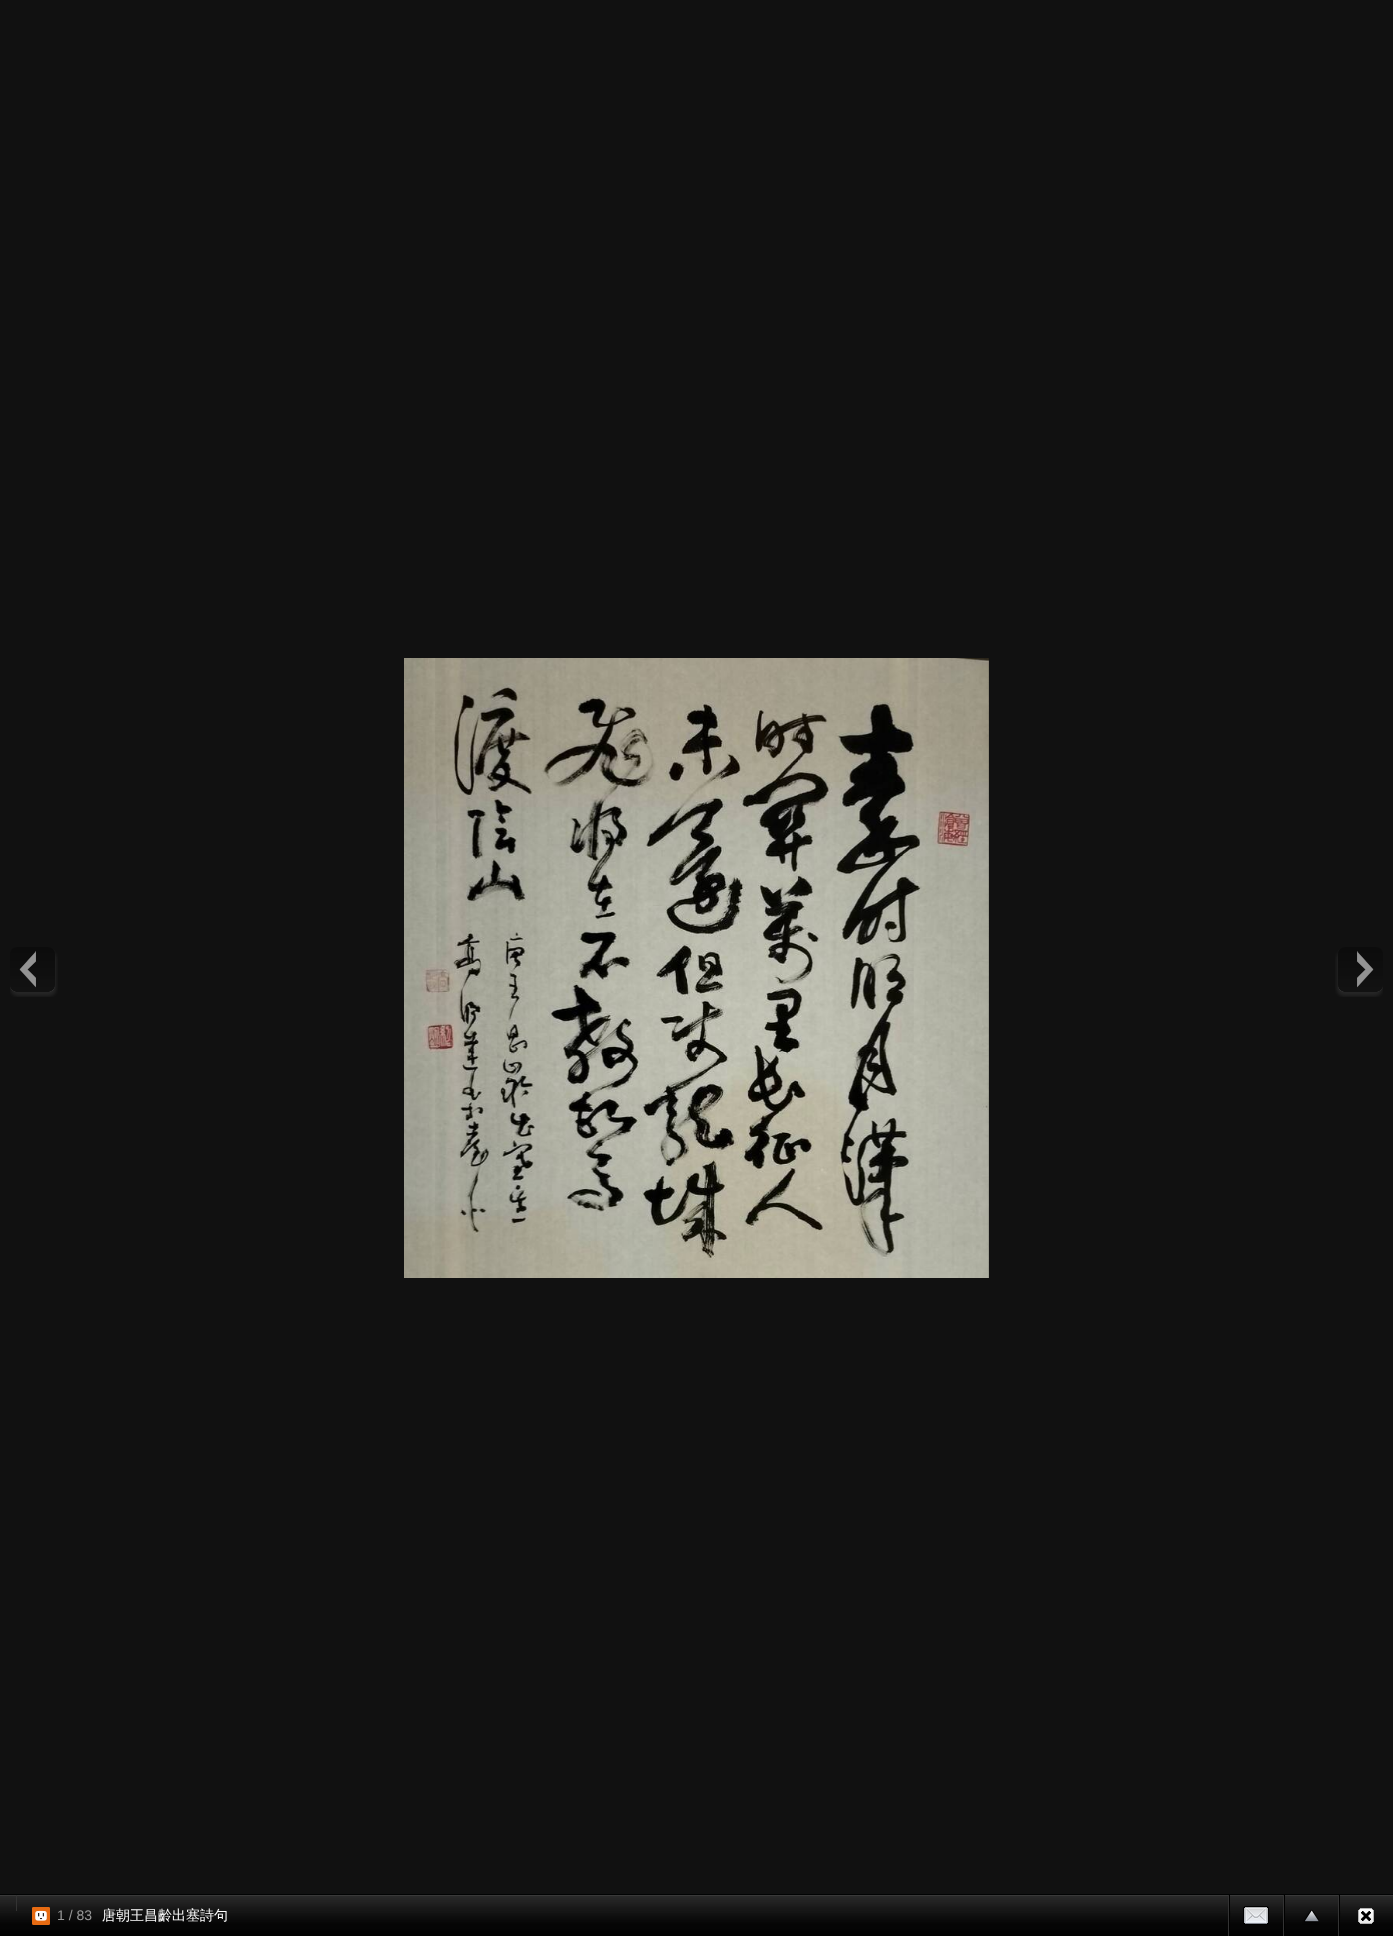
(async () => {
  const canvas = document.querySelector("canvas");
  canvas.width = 1393;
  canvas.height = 1936;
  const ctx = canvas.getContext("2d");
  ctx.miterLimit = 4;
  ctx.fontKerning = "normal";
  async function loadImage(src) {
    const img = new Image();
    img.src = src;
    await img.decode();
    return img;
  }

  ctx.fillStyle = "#111111";
  ctx.fillRect(0, 0, 1393, 1936);
  ctx.drawImage(await loadImage("img/1.png"), 10, 947, 48, 50);
  ctx.drawImage(await loadImage("img/2.png"), 404, 658, 585, 620);
  ctx.drawImage(await loadImage("img/3.png"), 1335, 947, 48, 50);
  ctx.drawImage(await loadImage("img/4.png"), 0, 1894, 1393, 42);
  ctx.fillStyle = "#333333";
  ctx.fillRect(16, 1895, 1, 16);
  ctx.drawImage(await loadImage("img/5.png"), 32, 1907, 18, 18);
  ctx.fillRect(1228, 1895, 1, 41);
  ctx.drawImage(await loadImage("img/6.png"), 1229, 1895, 40, 36);
  ctx.fillRect(1283, 1895, 1, 41);
  ctx.drawImage(await loadImage("img/7.png"), 1284, 1895, 35, 36);
  ctx.fillRect(1338, 1895, 1, 41);
  ctx.drawImage(await loadImage("img/8.png"), 1339, 1895, 35, 36);
  ctx.font = "14px Liberation Sans";
  ctx.fillStyle = "#999999";
  ctx.fillText("1 / 83", 57, 1920);
  ctx.font = "500 14px WenQuanYi Zen Hei";
  ctx.fillStyle = "#ffffff";
  ctx.fillText("唐朝王昌齡出塞詩句", 102, 1920);
})();
